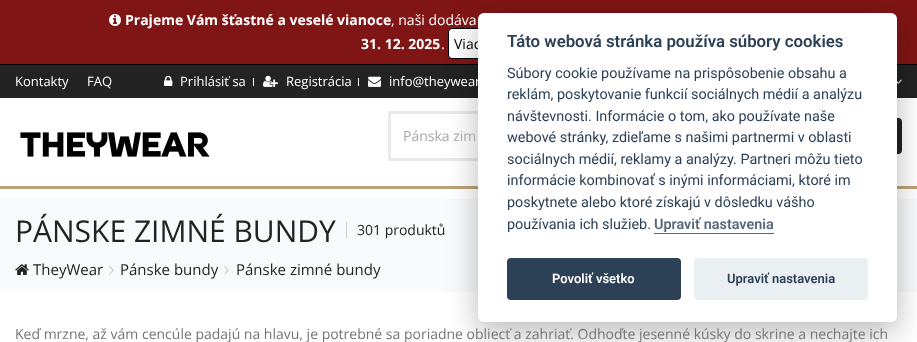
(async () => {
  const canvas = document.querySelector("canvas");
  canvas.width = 917;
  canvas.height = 342;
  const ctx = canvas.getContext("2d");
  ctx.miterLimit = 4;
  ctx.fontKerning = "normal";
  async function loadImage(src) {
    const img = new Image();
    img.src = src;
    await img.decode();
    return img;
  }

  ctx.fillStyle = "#ffffff";
  ctx.fillRect(0, 0, 917, 342);
  ctx.fillStyle = "#801515";
  ctx.fillRect(0, 0, 917, 64);
  ctx.fillStyle = "#000000";
  ctx.fillRect(0, 64, 917, 1);
  ctx.drawImage(await loadImage("img/1.png"), 109, 14, 12, 12);
  ctx.fillStyle = "#ffffff";
  ctx.beginPath();
  ctx.roundRect(448.5, 28.5, 107, 30, 3.5);
  ctx.fill();
  ctx.strokeStyle = "#000000";
  ctx.stroke();
  ctx.fillStyle = "#232323";
  ctx.fillRect(0, 65, 917, 33);
  ctx.drawImage(await loadImage("img/5.png"), 897, 79, 5, 5);
  ctx.fillStyle = "#b8a279";
  ctx.fillRect(0, 186, 917, 3);
  ctx.strokeStyle = "#e9e9e9";
  ctx.lineWidth = 3;
  ctx.strokeRect(389.5, 112.5, 297, 47);
  ctx.fillStyle = "#232323";
  ctx.beginPath();
  ctx.roundRect(865, 118, 37, 36, 4);
  ctx.fill();
  ctx.fillStyle = "#f9fafb";
  ctx.fillRect(0, 199, 917, 93);
  ctx.fillStyle = "rgba(2, 2, 3, 0.28)";
  ctx.filter = "blur(15px)";
  ctx.beginPath();
  ctx.roundRect(478, 23, 419, 309, 6);
  ctx.fill();
  ctx.filter = "none";
  ctx.drawImage(await loadImage("img/2.png"), 164, 75, 9, 11);
  ctx.fillStyle = "#ffffff";
  ctx.fillRect(253, 78, 1, 8);
  ctx.drawImage(await loadImage("img/3.png"), 263, 75, 15, 12);
  ctx.fillRect(358, 78, 1, 8);
  ctx.drawImage(await loadImage("img/4.png"), 368, 76, 13, 11);
  ctx.drawImage(await loadImage("img/6.png"), 20, 132, 190, 25);
  ctx.fillStyle = "#cccccc";
  ctx.fillRect(346, 222, 1, 16);
  ctx.drawImage(await loadImage("img/7.png"), 15, 264, 14, 11);
  ctx.drawImage(await loadImage("img/8.png"), 109, 266, 5, 9);
  ctx.drawImage(await loadImage("img/8.png"), 224, 266, 5, 9);
  ctx.font = "bold 14px Open Sans";
  ctx.fillStyle = "#ffffff";
  ctx.fillText("Prajeme Vám šťastné a veselé vianoce", 125, 25);
  ctx.font = "14px Open Sans";
  ctx.fillText(", naši dodáva", 391, 25);
  ctx.font = "bold 14px Open Sans";
  ctx.fillText("31. 12. 2025", 361, 49);
  ctx.font = "14px Open Sans";
  ctx.fillText(".", 441, 49);
  ctx.fillStyle = "#000000";
  ctx.fillText("Viac", 454, 49);
  ctx.fillStyle = "#ffffff";
  ctx.beginPath();
  ctx.roundRect(478, 13, 419, 309, 6);
  ctx.fill();
  ctx.font = "600 16.8px Roboto";
  ctx.fillStyle = "#2d4156";
  ctx.fillText("Táto webová stránka používa súbory cookies", 507, 47);
  ctx.font = "14.4px Roboto";
  for (const [text, x, y] of [
    ["Súbory cookie používame na prispôsobenie obsahu a", 507, 78],
    ["reklám, poskytovanie funkcií sociálnych médií a analýzu", 507, 99],
    ["návštevnosti. Informácie o tom, ako používate naše", 507, 121],
    ["webové stránky, zdieľame s našimi partnermi v oblasti", 507, 142],
    ["sociálnych médií, reklamy a analýzy. Partneri môžu tieto", 507, 164],
    ["informácie kombinovať s inými informáciami, ktoré im", 507, 185],
    ["poskytnete alebo ktoré získajú v dôsledku vášho", 507, 207],
    ["používania ich služieb.", 507, 229],
  ]) {
    ctx.fillText(text, x, y);
  }
  ctx.font = "600 14.4px Roboto";
  ctx.fillStyle = "#576778";
  ctx.fillText("Upraviť nastavenia", 654, 229);
  ctx.fillRect(654, 233, 120, 1);
  ctx.fillStyle = "#2d4156";
  ctx.beginPath();
  ctx.roundRect(507, 258, 174, 42, 4);
  ctx.fill();
  ctx.font = "600 13px Roboto";
  ctx.fillStyle = "#ffffff";
  ctx.fillText("Povoliť všetko", 552, 283);
  ctx.fillStyle = "#eaeff2";
  ctx.beginPath();
  ctx.roundRect(694, 258, 174, 42, 4);
  ctx.fill();
  ctx.fillStyle = "#2d4156";
  ctx.fillText("Upraviť nastavenia", 727, 283);
  ctx.font = "13px Open Sans";
  ctx.fillStyle = "#ffffff";
  for (const [text, x, y] of [
    ["Kontakty", 15, 86],
    ["FAQ", 87, 86],
    ["Prihlásiť sa", 180, 86],
    ["Registrácia", 286, 86],
    ["info@theywear", 389, 86],
  ]) {
    ctx.fillText(text, x, y);
  }
  ctx.font = "14px Open Sans";
  ctx.fillStyle = "#a6a7a8";
  ctx.fillText("Pánska zim", 403, 141);
  ctx.font = "30px Open Sans";
  ctx.fillStyle = "#232323";
  ctx.fillText("PÁNSKE ZIMNÉ BUNDY", 15, 242);
  ctx.font = "14px Open Sans";
  ctx.fillText("301 produktů", 357, 235);
  ctx.font = "15px Open Sans";
  for (const [text, x, y] of [
    ["TheyWear", 33, 275],
    ["Pánske bundy", 120, 275],
    ["Pánske zimné bundy", 236, 275],
  ]) {
    ctx.fillText(text, x, y);
  }
  ctx.font = "14px Open Sans";
  ctx.fillStyle = "#737475";
  ctx.fillText("Keď mrzne, až vám cencúle padajú na hlavu, je potrebné sa poriadne obliecť a zahriať. Odhoďte jesenné kúsky do skrine a nechajte ich", 15, 339);
})();
